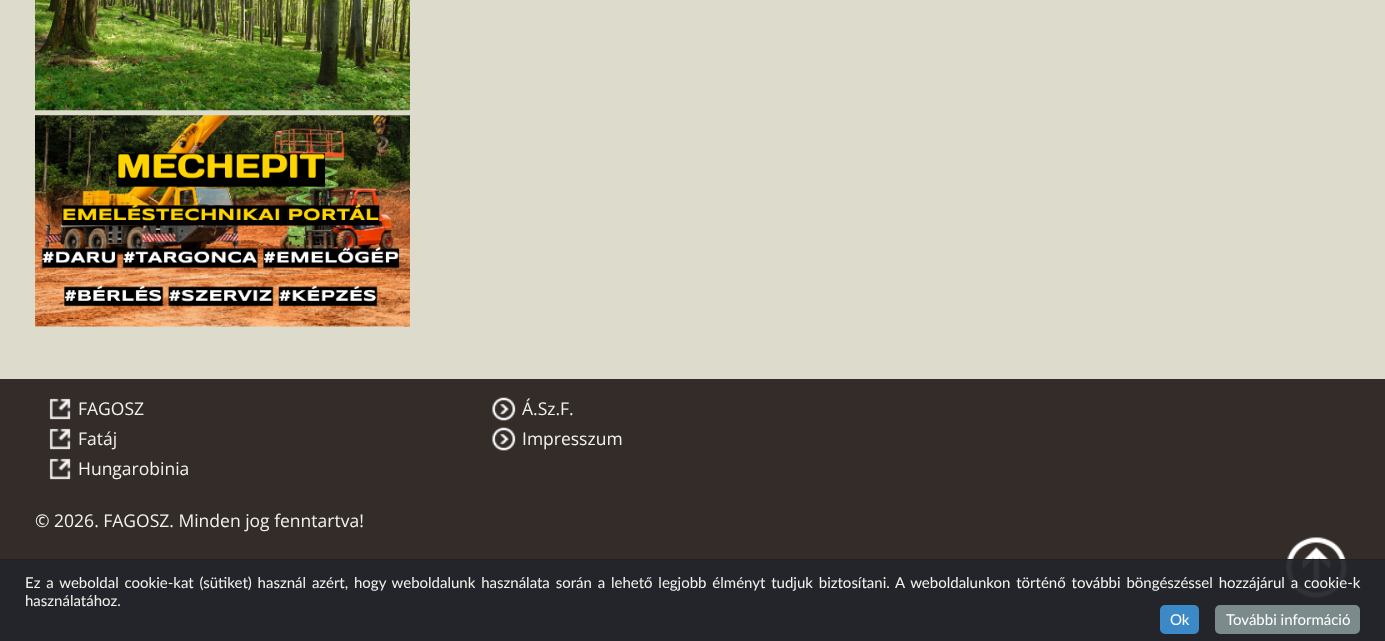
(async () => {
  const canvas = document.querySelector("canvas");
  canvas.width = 1385;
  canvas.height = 641;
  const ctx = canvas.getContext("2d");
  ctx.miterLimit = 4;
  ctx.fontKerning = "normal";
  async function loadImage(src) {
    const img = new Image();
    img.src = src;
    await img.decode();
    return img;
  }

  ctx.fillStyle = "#dddccc";
  ctx.fillRect(0, 0, 1385, 641);
  ctx.drawImage(await loadImage("img/1.png"), 35, 0, 375, 111);
  ctx.drawImage(await loadImage("img/2.png"), 35, 115, 375, 212);
  ctx.fillStyle = "#332c29";
  ctx.fillRect(0, 379, 1385, 262);
  ctx.drawImage(await loadImage("img/3.png"), 49, 398, 22, 22);
  ctx.drawImage(await loadImage("img/3.png"), 49, 428, 22, 22);
  ctx.drawImage(await loadImage("img/3.png"), 49, 458, 22, 22);
  ctx.drawImage(await loadImage("img/4.png"), 492, 397, 24, 24);
  ctx.drawImage(await loadImage("img/4.png"), 492, 427, 24, 24);
  ctx.drawImage(await loadImage("img/5.png"), 1286, 537, 61, 61);
  for (const [x, y, w, h, color] of [
    [0, 560, 1385, 81, "rgba(50, 58, 69, 0.7)"],
    [0, 559, 1385, 1, "#202226"],
    [0, 560, 1385, 81, "rgba(32, 34, 38, 0.8)"],
  ]) {
    ctx.fillStyle = color;
    ctx.fillRect(x, y, w, h);
  }
  ctx.fillStyle = "#3b89c7";
  ctx.beginPath();
  ctx.roundRect(1160, 605, 39, 29, 5);
  ctx.fill();
  ctx.fillStyle = "#7b8a8b";
  ctx.beginPath();
  ctx.roundRect(1215, 605, 145, 29, 5);
  ctx.fill();
  ctx.font = "17.5px Open Sans";
  ctx.fillStyle = "#f3f3ee";
  for (const [text, x, y] of [
    ["FAGOSZ", 78, 415],
    ["Fatáj", 78, 445],
    ["Hungarobinia", 78, 475],
    ["© 2026. FAGOSZ. Minden jog fenntartva!", 35, 527],
    ["Á.Sz.F.", 522, 415],
    ["Impresszum", 522, 445],
  ]) {
    ctx.fillText(text, x, y);
  }
  ctx.wordSpacing = "2px";
  ctx.font = "15px Lato";
  ctx.fillText("Ez a weboldal cookie-kat (sütiket) használ azért, hogy weboldalunk használata során a lehető legjobb élményt tudjuk biztosítani.", 25, 588);
  ctx.fillText("A weboldalunkon történő további böngészéssel hozzájárul a cookie-k", 895, 588);
  ctx.wordSpacing = "0px";
  ctx.fillText("használatához.", 25, 606);
  ctx.fillStyle = "#ffffff";
  ctx.fillText("Ok", 1170, 625);
  ctx.fillText("További információ", 1226, 625);
})();
